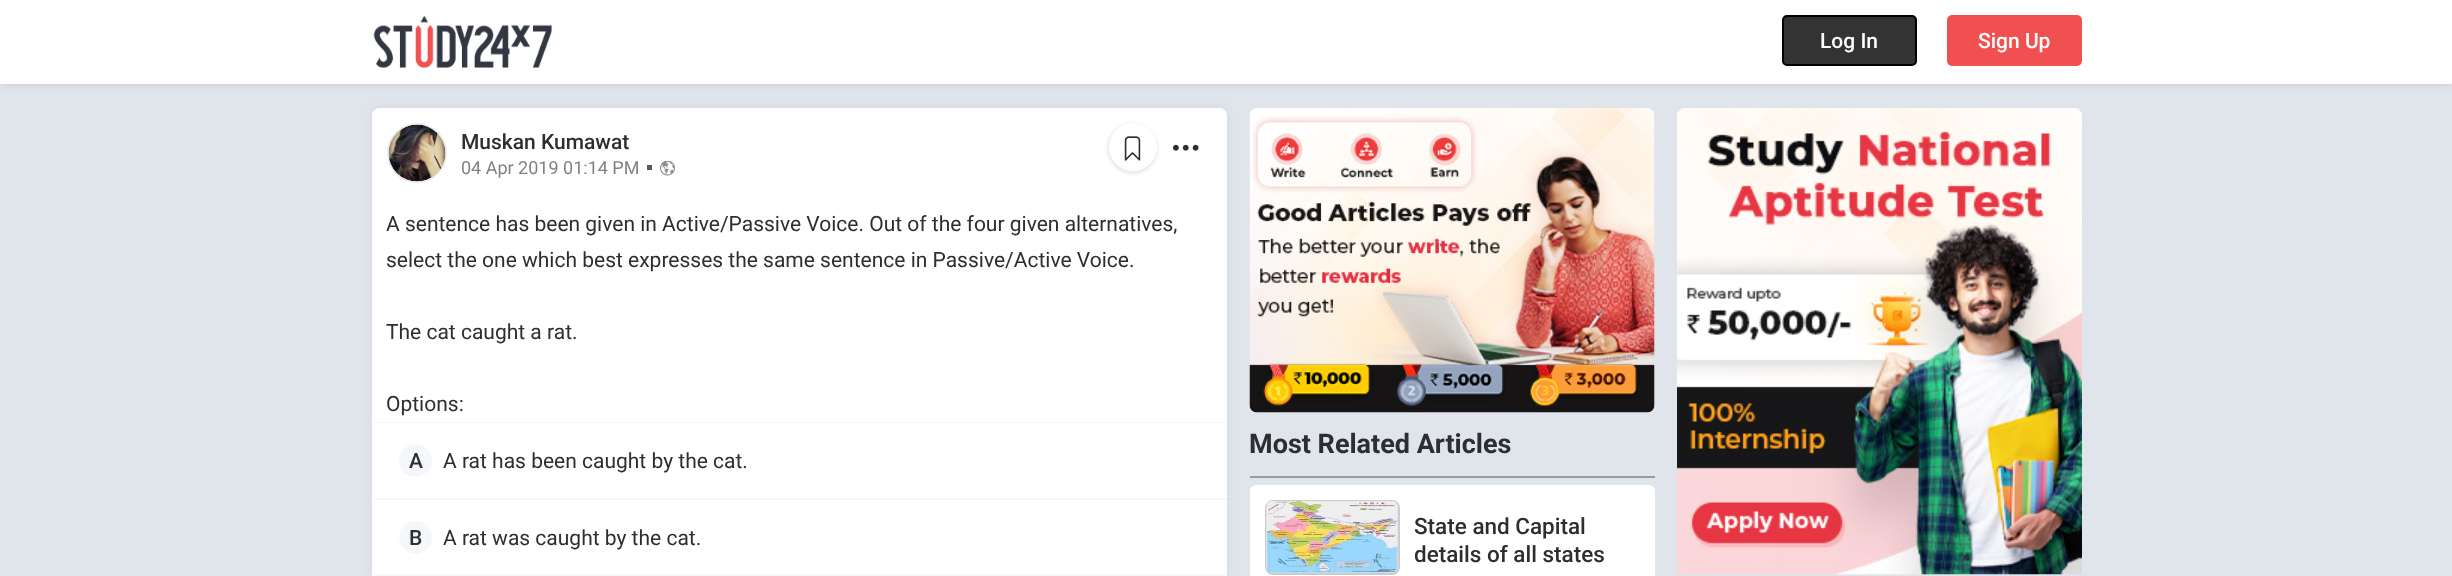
(async () => {
  const canvas = document.querySelector("canvas");
  canvas.width = 2452;
  canvas.height = 576;
  const ctx = canvas.getContext("2d");
  ctx.miterLimit = 4;
  ctx.fontKerning = "normal";
  async function loadImage(src) {
    const img = new Image();
    img.src = src;
    await img.decode();
    return img;
  }
  let path;

  ctx.fillStyle = "#dfe5eb";
  ctx.fillRect(0, 0, 2452, 576);
  ctx.fillStyle = "rgba(0, 0, 0, 0.1)";
  ctx.filter = "blur(5px)";
  ctx.beginPath();
  ctx.rect(0, 0, 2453, 84);
  ctx.fill();
  ctx.filter = "none";
  ctx.fillStyle = "#ffffff";
  ctx.fillRect(0, 0, 2452, 84);
  ctx.drawImage(await loadImage("img/1.png"), 373, 15, 179, 53);
  ctx.fillStyle = "#333333";
  ctx.beginPath();
  ctx.roundRect(1783, 16, 133, 49, 4);
  ctx.fill();
  ctx.strokeStyle = "#000000";
  ctx.lineWidth = 2;
  ctx.stroke();
  ctx.fillStyle = "#f05050";
  ctx.beginPath();
  ctx.roundRect(1948, 16, 133, 49, 4);
  ctx.fill();
  ctx.strokeStyle = "#f05050";
  ctx.stroke();
  ctx.fillStyle = "rgba(0, 0, 0, 0.05)";
  ctx.filter = "blur(4px)";
  ctx.beginPath();
  ctx.roundRect(372, 108, 855, 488, 8);
  ctx.fill();
  ctx.filter = "none";
  ctx.fillStyle = "#ffffff";
  ctx.beginPath();
  ctx.roundRect(372, 108, 855, 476, 8);
  ctx.fill();
  ctx.beginPath();
  ctx.roundRect(372, 108, 855, 90, 8);
  ctx.fill();
  ctx.beginPath();
  ctx.arc(417, 153, 29, 0, Math.PI * 2);
  ctx.strokeStyle = "#eaeaea";
  ctx.stroke();
  ctx.drawImage(await loadImage("img/2.png"), 388, 124, 58, 58);
  ctx.fillStyle = "#565859";
  ctx.fillRect(647, 165, 5, 5);
  ctx.drawImage(await loadImage("img/3.png"), 660, 161, 15, 15);
  ctx.fillStyle = "rgba(44, 46, 47, 0.1)";
  ctx.filter = "blur(1.5px)";
  ctx.beginPath();
  ctx.roundRect(1107, 123, 51, 51, 25.5);
  ctx.fill();
  ctx.filter = "none";
  ctx.fillStyle = "#ffffff";
  ctx.beginPath();
  ctx.arc(1133, 147, 24, 0, Math.PI * 2);
  ctx.fill();
  ctx.drawImage(await loadImage("img/4.png"), 1124, 136, 17, 25);
  ctx.drawImage(await loadImage("img/5.png"), 1173, 144, 26, 7);
  ctx.fillStyle = "#f7f7f7";
  path = new Path2D("M372 422H1227V423H376Z");
  ctx.fill(path);
  ctx.fillStyle = "#f5f7fa";
  ctx.beginPath();
  ctx.arc(415.5, 460.5, 16.5, 0, Math.PI * 2);
  ctx.fill();
  ctx.fillStyle = "#f7f7f7";
  path = new Path2D("M372 498H1227V500H376Z");
  ctx.fill(path);
  ctx.fillStyle = "#f5f7fa";
  ctx.beginPath();
  ctx.arc(415.5, 537.5, 16.5, 0, Math.PI * 2);
  ctx.fill();
  ctx.fillStyle = "#f7f7f7";
  path = new Path2D("M372 574H1227V576H376Z");
  ctx.fill(path);
  ctx.drawImage(await loadImage("img/6.png"), 1249, 108, 406, 305);
  ctx.fillStyle = "#979ca0";
  ctx.fillRect(1250, 476, 405, 2);
  ctx.fillStyle = "#ffffff";
  ctx.beginPath();
  ctx.roundRect(1250, 485, 405, 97, 6);
  ctx.fill();
  ctx.beginPath();
  ctx.roundRect(1266, 501, 133, 73, 7);
  ctx.strokeStyle = "#cccccc";
  ctx.stroke();
  ctx.drawImage(await loadImage("img/7.png"), 1266, 501, 132, 72);
  ctx.drawImage(await loadImage("img/8.png"), 1677, 108, 405, 467);
  ctx.font = "500 21px Roboto";
  ctx.fillText("Log In", 1820, 48);
  ctx.fillText("Sign Up", 1978, 48);
  ctx.fillStyle = "#2c2e2f";
  ctx.fillText("Muskan Kumawat", 461, 149);
  ctx.font = "18px Roboto";
  ctx.fillStyle = "#808282";
  ctx.fillText("04 Apr 2019 01:14 PM", 461, 174);
  ctx.font = "21px Roboto";
  ctx.fillStyle = "#2c2e2f";
  for (const [text, x, y] of [
    ["A sentence has been given in Active/Passive Voice. Out of the four given alternatives,", 386, 231],
    ["select the one which best expresses the same sentence in Passive/Active Voice.", 386, 267],
    ["The cat caught a rat.", 386, 339],
    ["Options:", 386, 411],
  ]) {
    ctx.fillText(text, x, y);
  }
  ctx.font = "500 21px Roboto";
  ctx.fillText("A", 409, 468);
  ctx.font = "21px Roboto";
  ctx.fillText("A rat has been caught by the cat.", 443, 468);
  ctx.font = "500 21px Roboto";
  ctx.fillText("B", 409, 545);
  ctx.font = "21px Roboto";
  ctx.fillText("A rat was caught by the cat.", 443, 545);
  ctx.font = "bold 27px Roboto";
  ctx.fillText("Most Related Articles", 1249, 453);
  ctx.font = "500 22.5px Roboto";
  ctx.fillText("State and Capital", 1414, 534);
  ctx.save();
  ctx.beginPath();
  ctx.rect(1415, 513, 225, 57);
  ctx.clip();
  ctx.fillText("details of all states", 1414, 562);
  ctx.restore();
})();
